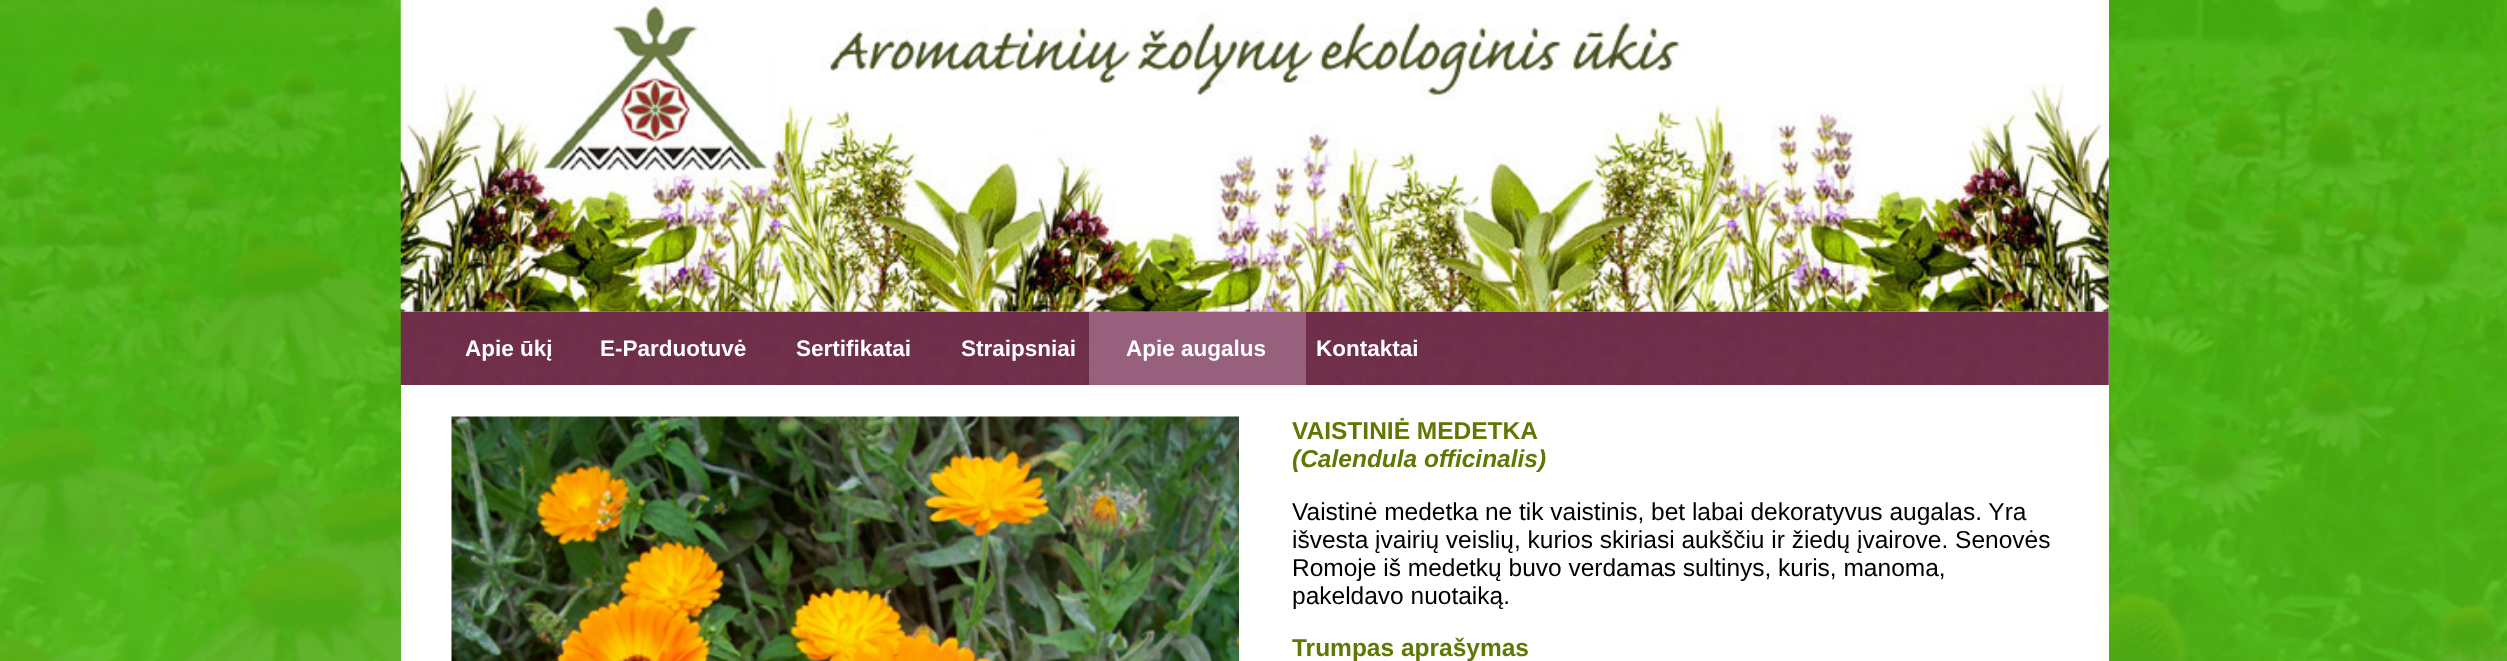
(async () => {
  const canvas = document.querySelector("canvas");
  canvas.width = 2507;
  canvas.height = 661;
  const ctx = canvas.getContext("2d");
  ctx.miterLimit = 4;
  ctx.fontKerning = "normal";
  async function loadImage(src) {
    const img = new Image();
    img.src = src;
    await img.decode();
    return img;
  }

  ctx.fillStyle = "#ffffff";
  ctx.fillRect(0, 0, 2507, 661);
  ctx.drawImage(await loadImage("img/1.png"), 0, 0, 2507, 661);
  ctx.fillRect(401, 0, 1708, 661);
  ctx.drawImage(await loadImage("img/3.png"), 400, 311, 1709, 74);
  ctx.drawImage(await loadImage("img/2.png"), 400, 0, 1709, 312);
  ctx.fillStyle = "#97607d";
  ctx.fillRect(1089, 312, 217, 73);
  ctx.drawImage(await loadImage("img/4.png"), 451, 416, 788, 245);
  ctx.font = "bold 22.5px Liberation Sans";
  ctx.fillStyle = "#ffffff";
  for (const [text, x, y] of [
    ["Apie ūkį", 465, 356],
    ["E-Parduotuvė", 600, 356],
    ["Sertifikatai", 796, 356],
    ["Straipsniai", 961, 356],
    ["Apie augalus", 1126, 356],
    ["Kontaktai", 1316, 356],
  ]) {
    ctx.fillText(text, x, y);
  }
  ctx.font = "bold 24.5px Liberation Sans";
  ctx.fillStyle = "#5f7803";
  ctx.fillText("VAISTINIĖ MEDETKA", 1292, 439);
  ctx.font = "italic bold 24.5px Liberation Sans";
  ctx.fillText("(Calendula officinalis)", 1292, 467);
  ctx.font = "24.5px Liberation Sans";
  ctx.fillStyle = "#000000";
  for (const [text, x, y] of [
    ["Vaistinė medetka ne tik vaistinis, bet labai dekoratyvus augalas. Yra", 1292, 520],
    ["išvesta įvairių veislių, kurios skiriasi aukščiu ir žiedų įvairove. Senovės", 1292, 548],
    ["Romoje iš medetkų buvo verdamas sultinys, kuris, manoma,", 1292, 576],
    ["pakeldavo nuotaiką.", 1292, 604],
  ]) {
    ctx.fillText(text, x, y);
  }
  ctx.font = "bold 24.5px Liberation Sans";
  ctx.fillStyle = "#5f7803";
  ctx.fillText("Trumpas aprašymas", 1292, 656);
})();
